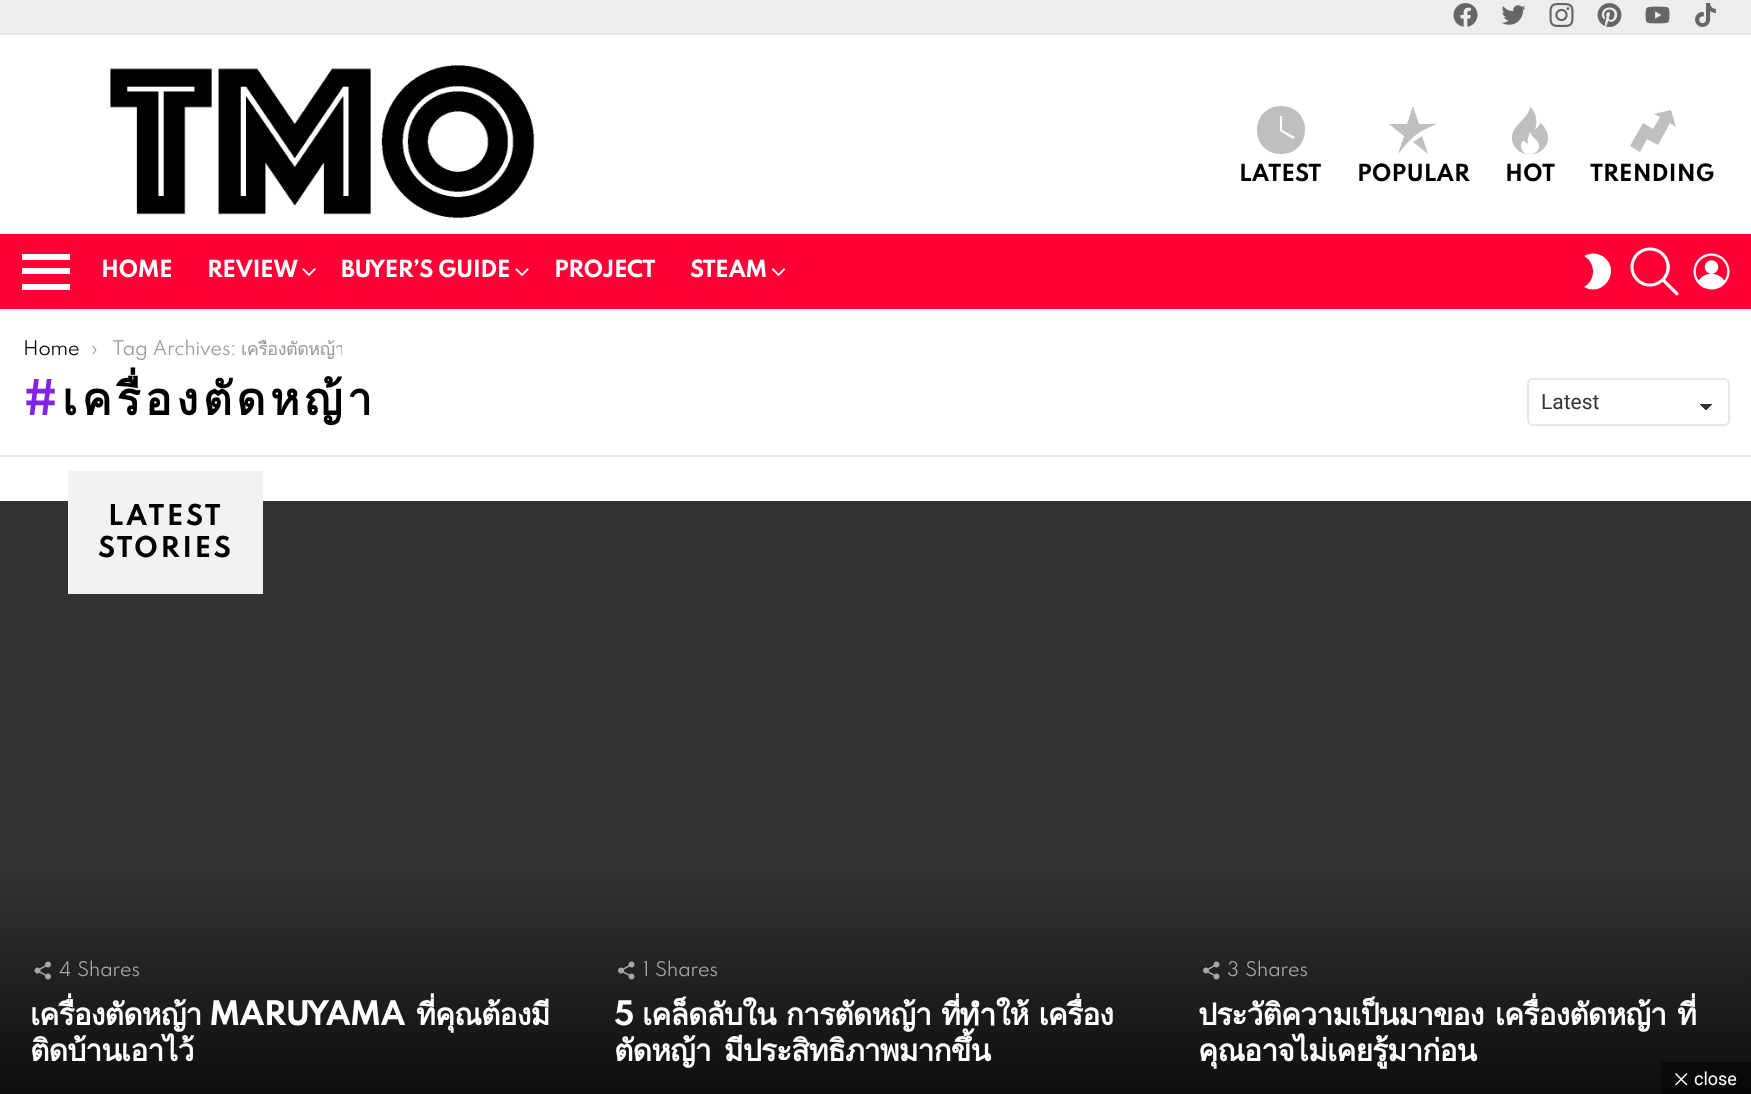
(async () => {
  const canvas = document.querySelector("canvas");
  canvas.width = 1751;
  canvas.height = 1094;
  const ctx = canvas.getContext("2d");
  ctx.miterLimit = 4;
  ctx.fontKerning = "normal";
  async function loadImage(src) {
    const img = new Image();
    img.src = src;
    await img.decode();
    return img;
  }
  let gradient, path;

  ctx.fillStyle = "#ffffff";
  ctx.fillRect(0, 0, 1751, 1094);
  ctx.fillStyle = "#ededed";
  ctx.fillRect(0, 0, 1751, 33);
  ctx.fillStyle = "#e6e6e6";
  ctx.fillRect(0, 33, 1751, 2);
  ctx.drawImage(await loadImage("img/1.png"), 1453, 3, 25, 24);
  ctx.drawImage(await loadImage("img/2.png"), 1501, 5, 25, 20);
  ctx.drawImage(await loadImage("img/3.png"), 1549, 3, 25, 24);
  ctx.drawImage(await loadImage("img/4.png"), 1597, 3, 25, 24);
  ctx.drawImage(await loadImage("img/5.png"), 1645, 6, 25, 18);
  ctx.drawImage(await loadImage("img/6.png"), 1695, 3, 21, 24);
  ctx.drawImage(await loadImage("img/7.png"), 110, 65, 425, 153);
  ctx.fillStyle = "#bfbfbf";
  path = new Path2D("M1281 106C1249 106 1249 154 1281 154C1313 154 1313 106 1281 106ZM1293 139L1280 131V116H1282V130L1295 137Z");
  ctx.fill(path);
  path = new Path2D("M1416 135C1422 130 1430 127 1437 124H1419L1413 106L1407 124H1389L1404 136L1398 154C1403 148 1409 140 1416 135ZM1413 142L1428 154L1422 136Z");
  ctx.fill(path);
  ctx.drawImage(await loadImage("img/8.png"), 1512, 106, 36, 49);
  path = new Path2D("M1653 129L1660 117L1654 114L1671 110L1676 127L1670 123L1658 145L1647 139L1640 152L1630 146L1643 123Z");
  ctx.fill(path);
  ctx.fillStyle = "#ff0036";
  ctx.fillRect(0, 234, 1751, 75);
  ctx.fillStyle = "#ffffff";
  path = new Path2D("M22 254H70V260H22ZM22 268H70V274H22ZM22 284H70V290H22Z");
  ctx.fill(path);
  ctx.drawImage(await loadImage("img/9.png"), 302, 268, 14, 8);
  ctx.drawImage(await loadImage("img/9.png"), 515, 268, 14, 8);
  ctx.drawImage(await loadImage("img/10.png"), 771, 268, 15, 8);
  path = new Path2D("M1593 253.5C1590 253.5 1587 254.5 1584 256C1596 263 1596 280 1584 287C1602.5 297.5 1621 272.5 1605 258C1602 255 1597.5 253.5 1593 253.5Z");
  ctx.fill(path);
  ctx.drawImage(await loadImage("img/11.png"), 1630, 247, 49, 49);
  ctx.drawImage(await loadImage("img/12.png"), 1693, 253, 37, 37);
  gradient = ctx.createLinearGradient(1706, 403, 1713, 410);
  gradient.addColorStop(0.5, "#333333");
  gradient.addColorStop(0.5, "#ffffff");
  ctx.fillStyle = gradient;
  ctx.fillRect(1706, 404, 7, 6);
  gradient = ctx.createLinearGradient(1698, 410, 1705, 403);
  gradient.addColorStop(0.5, "#ffffff");
  gradient.addColorStop(0.5, "#333333");
  ctx.fillStyle = gradient;
  ctx.fillRect(1698, 404, 8, 6);
  ctx.beginPath();
  ctx.roundRect(1528, 379, 201, 46, 5);
  ctx.strokeStyle = "#e6e6e6";
  ctx.lineWidth = 2;
  ctx.stroke();
  for (const [x, y, w, h, color] of [
    [0, 455, 1751, 2, "#e6e6e6"],
    [0, 501, 1751, 365, "#333333"],
    [68, 471, 195, 123, "#f2f2f2"],
  ]) {
    ctx.fillStyle = color;
    ctx.fillRect(x, y, w, h);
  }
  gradient = ctx.createLinearGradient(292, 866, 292, 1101);
  gradient.addColorStop(0, "#333333");
  gradient.addColorStop(1, "#0d0d0d");
  ctx.fillStyle = gradient;
  ctx.fillRect(0, 866, 584, 228);
  ctx.drawImage(await loadImage("img/13.png"), 34, 961, 17, 19);
  gradient = ctx.createLinearGradient(876, 866, 876, 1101);
  gradient.addColorStop(0, "#333333");
  gradient.addColorStop(1, "#0d0d0d");
  ctx.fillStyle = gradient;
  ctx.fillRect(584, 866, 585, 228);
  ctx.drawImage(await loadImage("img/14.png"), 618, 961, 17, 19);
  gradient = ctx.createLinearGradient(1460, 866, 1460, 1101);
  gradient.addColorStop(0, "#333333");
  gradient.addColorStop(1, "#0d0d0d");
  ctx.fillStyle = gradient;
  ctx.fillRect(1169, 866, 582, 228);
  gradient = ctx.createLinearGradient(1460, 866, 1460, 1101);
  gradient.addColorStop(0, "#1a1a1a");
  gradient.addColorStop(1, "#070707");
  ctx.fillStyle = gradient;
  ctx.fillRect(1661, 1062, 90, 32);
  ctx.drawImage(await loadImage("img/14.png"), 1203, 961, 17, 19);
  ctx.fillStyle = "#ffffff";
  path = new Path2D("M1676 1073L1687.5 1084.5L1686.5 1085.5L1675 1074Z");
  ctx.fill(path);
  path = new Path2D("M1686.5 1073L1687.5 1074L1676 1085.5L1675 1084.5Z");
  ctx.fill(path);
  ctx.font = "bold 21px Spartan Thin";
  ctx.fillStyle = "#000000";
  for (const [text, x, y] of [
    ["LATEST", 1239, 181],
    ["POPULAR", 1357, 181],
    ["HOT", 1505, 181],
    ["TRENDING", 1590, 181],
  ]) {
    ctx.fillText(text, x, y);
  }
  ctx.letterSpacing = "-0.6px";
  ctx.fillStyle = "#ffffff";
  for (const [text, x, y] of [
    ["HOME", 101, 277],
    ["REVIEW", 207, 277],
    ["BUYER’S GUIDE", 341, 277],
    ["PROJECT", 554, 277],
    ["STEAM", 690, 277],
  ]) {
    ctx.fillText(text, x, y);
  }
  ctx.letterSpacing = "-0.5px";
  ctx.font = "18px Spartan Thin";
  ctx.fillStyle = "#000000";
  ctx.fillText("Home", 23, 355);
  ctx.fillStyle = "#999999";
  ctx.fillText("›", 91, 355);
  ctx.wordSpacing = "1px";
  ctx.fillText("Tag Archives:", 112, 355);
  ctx.save();
  ctx.beginPath();
  ctx.rect(90, 339, 252, 24);
  ctx.clip();
  ctx.wordSpacing = "0px";
  ctx.font = "18px Loma";
  ctx.fillText("เครื่องตัดหญ้า", 241, 355);
  ctx.restore();
  ctx.letterSpacing = "4.4px";
  ctx.wordSpacing = "0px";
  ctx.font = "bold 45px Spartan Thin";
  ctx.fillStyle = "#8224e3";
  ctx.fillText("#", 23, 415);
  ctx.font = "bold 45px Loma";
  ctx.fillStyle = "#000000";
  ctx.fillText("เครื่องตัดหญ้า", 62, 415);
  ctx.letterSpacing = "0px";
  ctx.font = "21px Roboto";
  ctx.fillStyle = "#333333";
  ctx.fillText("Latest", 1541, 409);
  ctx.letterSpacing = "2.5px";
  ctx.font = "bold 25.5px Spartan Thin";
  ctx.fillStyle = "#000000";
  ctx.fillText("LATEST", 108, 525);
  ctx.fillText("STORIES", 98, 557);
  ctx.letterSpacing = "-0.5px";
  ctx.font = "18px Spartan Thin";
  ctx.fillStyle = "#a7a7a7";
  ctx.fillText("4", 59, 976);
  ctx.fillText("Shares", 77, 976);
  ctx.letterSpacing = "-0.9px";
  ctx.font = "bold 30px Loma";
  ctx.fillStyle = "#ffffff";
  ctx.fillText("เครื่องตัดหญ้า", 30, 1025);
  ctx.font = "bold 30px Spartan Thin";
  ctx.fillText("MARUYAMA", 209, 1025);
  ctx.font = "bold 30px Loma";
  ctx.fillText("ที่คุณต้องมี", 416, 1025);
  ctx.fillText("ติดบ้านเอาไว้", 30, 1061);
  ctx.letterSpacing = "-0.5px";
  ctx.font = "18px Spartan Thin";
  ctx.fillStyle = "#a7a7a7";
  ctx.fillText("1", 643, 976);
  ctx.fillText("Shares", 655, 976);
  ctx.letterSpacing = "-0.9px";
  ctx.font = "bold 30px Spartan Thin";
  ctx.fillStyle = "#ffffff";
  ctx.fillText("5", 614, 1025);
  ctx.wordSpacing = "1px";
  ctx.font = "bold 30px Loma";
  ctx.fillText("เคล็ดลับใน การตัดหญ้า ที่ทำให้ เครื่อง", 642, 1025);
  ctx.wordSpacing = "4px";
  ctx.fillText("ตัดหญ้า มีประสิทธิภาพมากขึ้น", 614, 1061);
  ctx.letterSpacing = "-0.5px";
  ctx.wordSpacing = "0px";
  ctx.font = "18px Spartan Thin";
  ctx.fillStyle = "#a7a7a7";
  ctx.fillText("3", 1227, 976);
  ctx.fillText("Shares", 1245, 976);
  ctx.letterSpacing = "-0.9px";
  ctx.wordSpacing = "2px";
  ctx.font = "bold 30px Loma";
  ctx.fillStyle = "#ffffff";
  ctx.fillText("ประวัติความเป็นมาของ เครื่องตัดหญ้า ที่", 1198, 1025);
  ctx.wordSpacing = "0px";
  ctx.fillText("คุณอาจไม่เคยรู้มาก่อน", 1198, 1061);
  ctx.letterSpacing = "0px";
  ctx.font = "18px Roboto";
  ctx.fillText("close", 1694, 1085);
})();
